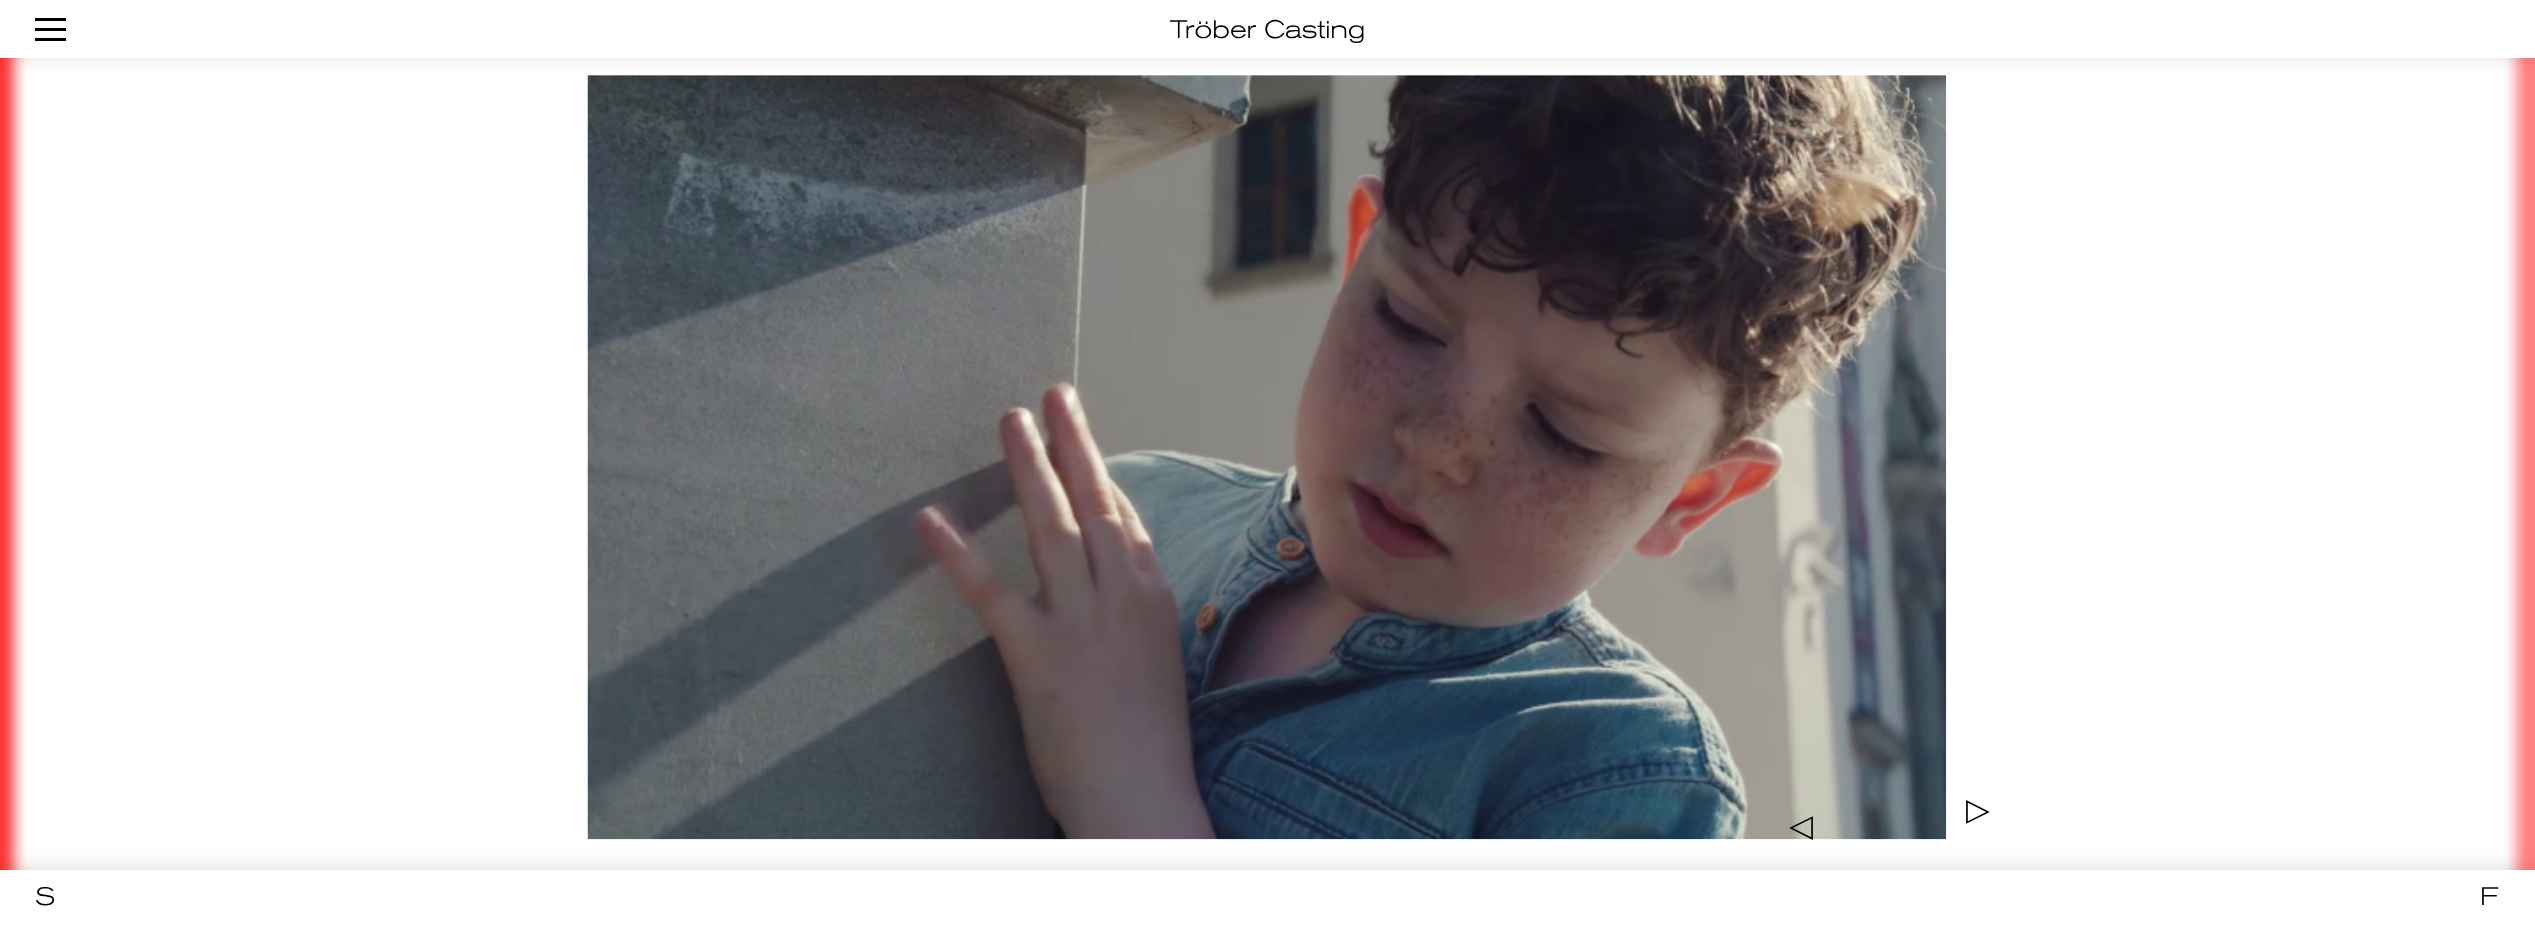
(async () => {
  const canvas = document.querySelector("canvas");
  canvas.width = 2535;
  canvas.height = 927;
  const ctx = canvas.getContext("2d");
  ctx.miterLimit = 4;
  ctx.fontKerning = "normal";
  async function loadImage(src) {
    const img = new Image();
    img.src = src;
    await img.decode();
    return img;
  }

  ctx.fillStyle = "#ffffff";
  ctx.fillRect(0, 0, 2535, 927);
  ctx.fillStyle = "#ff3333";
  ctx.filter = "blur(7px)";
  ctx.beginPath();
  ctx.rect(-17, -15, 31, 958);
  ctx.fill();
  ctx.filter = "none";
  ctx.fillRect(0, 58, 1, 812);
  ctx.fillStyle = "#ff8080";
  ctx.filter = "blur(7px)";
  ctx.beginPath();
  ctx.rect(2516, -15, 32, 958);
  ctx.fill();
  ctx.filter = "none";
  ctx.fillRect(2534, 58, 1, 812);
  ctx.drawImage(await loadImage("img/1.png"), 587, 75, 1360, 765);
  ctx.fillStyle = "rgba(0, 0, 0, 0.15)";
  ctx.filter = "blur(9px)";
  ctx.beginPath();
  ctx.rect(0, -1, 2535, 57);
  ctx.fill();
  ctx.filter = "none";
  for (const [x, y, w, h, color] of [
    [0, 0, 2535, 58, "#ffffff"],
    [35, 28, 31, 3, "#000000"],
    [35, 18, 31, 3, "#000000"],
    [35, 38, 31, 3, "#000000"],
  ]) {
    ctx.fillStyle = color;
    ctx.fillRect(x, y, w, h);
  }
  ctx.fillStyle = "rgba(0, 0, 0, 0.15)";
  ctx.filter = "blur(9px)";
  ctx.beginPath();
  ctx.rect(0, 869, 2535, 57);
  ctx.fill();
  ctx.filter = "none";
  ctx.fillStyle = "#ffffff";
  ctx.fillRect(0, 870, 2535, 57);
  ctx.font = "300 25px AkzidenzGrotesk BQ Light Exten";
  ctx.fillStyle = "#000000";
  ctx.fillText("Tröber Casting", 1170, 38);
  ctx.font = "31px DejaVu Sans";
  ctx.fillText("▷", 1966, 820);
  ctx.save();
  ctx.translate(1813, 820);
  ctx.rotate(180 * Math.PI / 180);
  ctx.fillText("▷", 0, 0);
  ctx.restore();
  ctx.font = "300 25px AkzidenzGrotesk BQ Light Exten";
  ctx.fillText("S", 35, 905);
  ctx.fillText("F", 2480, 905);
})();
